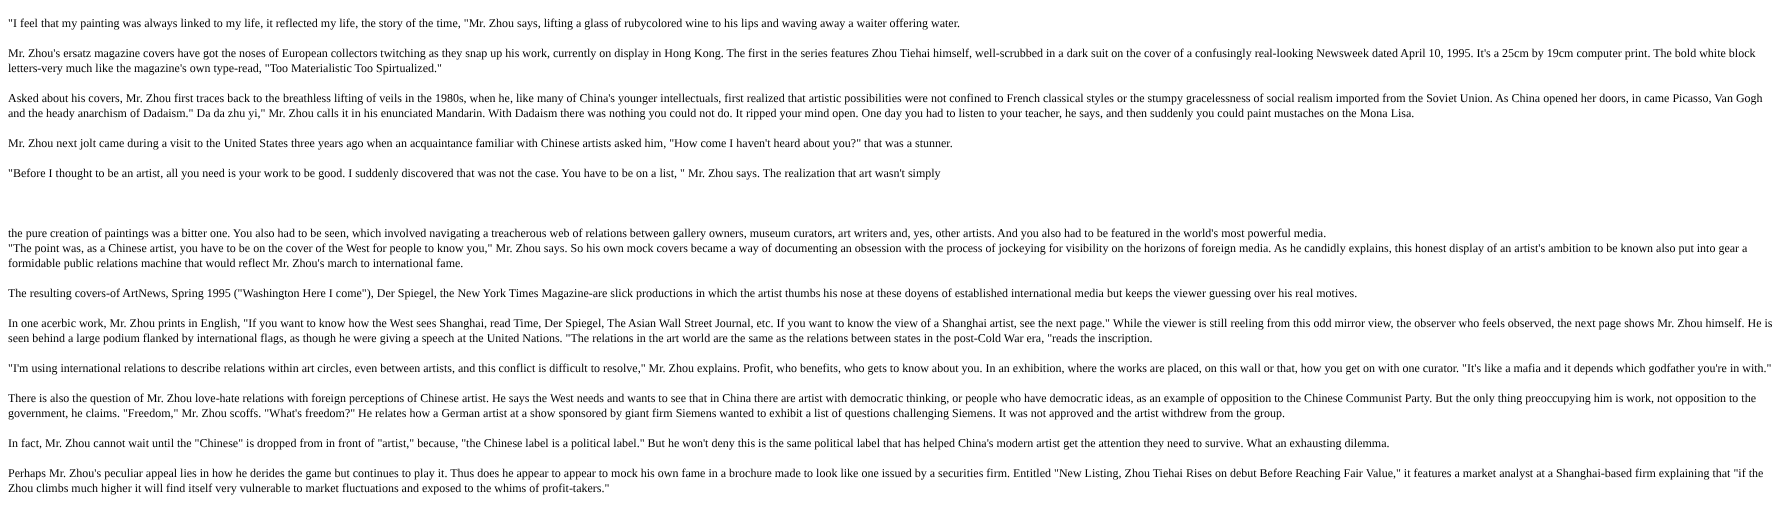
(async () => {
  const canvas = document.querySelector("canvas");
  canvas.width = 1782;
  canvas.height = 523;
  const ctx = canvas.getContext("2d");
  ctx.miterLimit = 4;
  ctx.fontKerning = "normal";

  ctx.fillStyle = "#ffffff";
  ctx.fillRect(0, 0, 1782, 523);
  ctx.font = "12px Liberation Serif";
  ctx.fillStyle = "#000000";
  for (const [text, x, y] of [
    ["\"I feel that my painting was always linked to my life, it reflected my life, the story of the time, \"Mr. Zhou says, lifting a glass of rubycolored wine to his lips and waving away a waiter offering water.", 8, 27],
    ["Mr. Zhou's ersatz magazine covers have got the noses of European collectors twitching as they snap up his work, currently on display in Hong Kong. The first in the series features Zhou Tiehai himself, well-scrubbed in a dark suit on the cover of a confusingly real-looking Newsweek dated April 10, 1995. It's a 25cm by 19cm computer print. The bold white block", 8, 57],
    ["letters-very much like the magazine's own type-read, \"Too Materialistic Too Spirtualized.\"", 8, 72],
    ["Asked about his covers, Mr. Zhou first traces back to the breathless lifting of veils in the 1980s, when he, like many of China's younger intellectuals, first realized that artistic possibilities were not confined to French classical styles or the stumpy gracelessness of social realism imported from the Soviet Union. As China opened her doors, in came Picasso, Van Gogh", 8, 102],
    ["and the heady anarchism of Dadaism.\" Da da zhu yi,\" Mr. Zhou calls it in his enunciated Mandarin. With Dadaism there was nothing you could not do. It ripped your mind open. One day you had to listen to your teacher, he says, and then suddenly you could paint mustaches on the Mona Lisa.", 8, 117],
    ["Mr. Zhou next jolt came during a visit to the United States three years ago when an acquaintance familiar with Chinese artists asked him, \"How come I haven't heard about you?\" that was a stunner.", 8, 147],
    ["\"Before I thought to be an artist, all you need is your work to be good. I suddenly discovered that was not the case. You have to be on a list, \" Mr. Zhou says. The realization that art wasn't simply", 8, 177],
    ["the pure creation of paintings was a bitter one. You also had to be seen, which involved navigating a treacherous web of relations between gallery owners, museum curators, art writers and, yes, other artists. And you also had to be featured in the world's most powerful media.", 8, 237],
    ["\"The point was, as a Chinese artist, you have to be on the cover of the West for people to know you,\" Mr. Zhou says. So his own mock covers became a way of documenting an obsession with the process of jockeying for visibility on the horizons of foreign media. As he candidly explains, this honest display of an artist's ambition to be known also put into gear a", 8, 252],
    ["formidable public relations machine that would reflect Mr. Zhou's march to international fame.", 8, 267],
    ["The resulting covers-of ArtNews, Spring 1995 (\"Washington Here I come\"), Der Spiegel, the New York Times Magazine-are slick productions in which the artist thumbs his nose at these doyens of established international media but keeps the viewer guessing over his real motives.", 8, 297],
    ["In one acerbic work, Mr. Zhou prints in English, \"If you want to know how the West sees Shanghai, read Time, Der Spiegel, The Asian Wall Street Journal, etc. If you want to know the view of a Shanghai artist, see the next page.\" While the viewer is still reeling from this odd mirror view, the observer who feels observed, the next page shows Mr. Zhou himself. He is", 8, 327],
    ["seen behind a large podium flanked by international flags, as though he were giving a speech at the United Nations. \"The relations in the art world are the same as the relations between states in the post-Cold War era, \"reads the inscription.", 8, 342],
    ["\"I'm using international relations to describe relations within art circles, even between artists, and this conflict is difficult to resolve,\" Mr. Zhou explains. Profit, who benefits, who gets to know about you. In an exhibition, where the works are placed, on this wall or that, how you get on with one curator. \"It's like a mafia and it depends which godfather you're in with.\"", 8, 372],
    ["There is also the question of Mr. Zhou love-hate relations with foreign perceptions of Chinese artist. He says the West needs and wants to see that in China there are artist with democratic thinking, or people who have democratic ideas, as an example of opposition to the Chinese Communist Party. But the only thing preoccupying him is work, not opposition to the", 8, 402],
    ["government, he claims. \"Freedom,\" Mr. Zhou scoffs. \"What's freedom?\" He relates how a German artist at a show sponsored by giant firm Siemens wanted to exhibit a list of questions challenging Siemens. It was not approved and the artist withdrew from the group.", 8, 417],
    ["In fact, Mr. Zhou cannot wait until the \"Chinese\" is dropped from in front of \"artist,\" because, \"the Chinese label is a political label.\" But he won't deny this is the same political label that has helped China's modern artist get the attention they need to survive. What an exhausting dilemma.", 8, 447],
    ["Perhaps Mr. Zhou's peculiar appeal lies in how he derides the game but continues to play it. Thus does he appear to appear to mock his own fame in a brochure made to look like one issued by a securities firm. Entitled \"New Listing, Zhou Tiehai Rises on debut Before Reaching Fair Value,\" it features a market analyst at a Shanghai-based firm explaining that \"if the", 8, 477],
    ["Zhou climbs much higher it will find itself very vulnerable to market fluctuations and exposed to the whims of profit-takers.\"", 8, 492],
  ]) {
    ctx.fillText(text, x, y);
  }
})();
